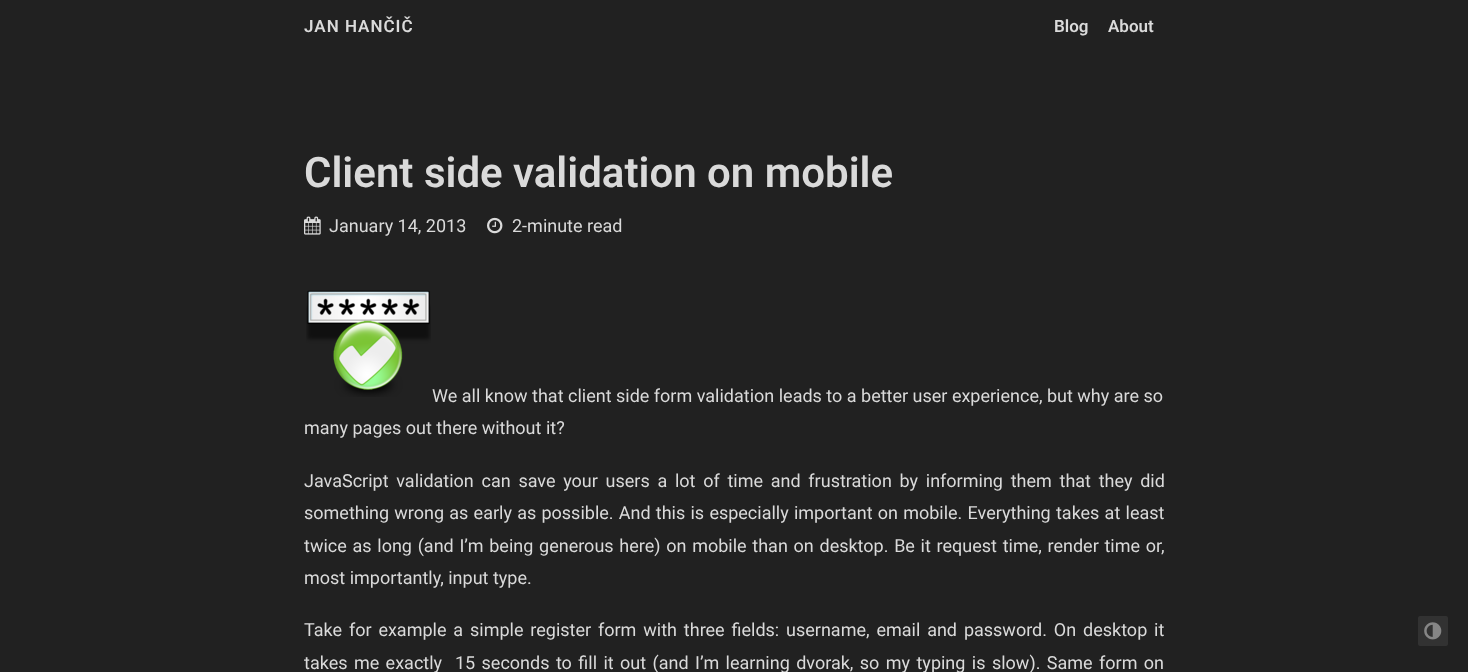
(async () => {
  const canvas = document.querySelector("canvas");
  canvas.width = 1468;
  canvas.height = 672;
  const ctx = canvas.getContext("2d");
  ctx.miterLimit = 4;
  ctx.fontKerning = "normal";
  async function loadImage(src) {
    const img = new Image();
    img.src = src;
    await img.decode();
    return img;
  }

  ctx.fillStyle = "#212121";
  ctx.fillRect(0, 0, 1468, 672);
  ctx.drawImage(await loadImage("img/1.png"), 304, 216, 17, 19);
  ctx.drawImage(await loadImage("img/2.png"), 487, 217, 16, 17);
  ctx.drawImage(await loadImage("img/3.png"), 306, 290, 125, 107);
  ctx.fillStyle = "#323232";
  ctx.beginPath();
  ctx.roundRect(1418, 616, 30, 30, 2);
  ctx.fill();
  ctx.drawImage(await loadImage("img/4.png"), 1424, 622, 18, 18);
  ctx.letterSpacing = "1px";
  ctx.font = "600 17px Roboto";
  ctx.fillStyle = "#dadada";
  ctx.fillText("JAN HANČIČ", 304, 32);
  ctx.letterSpacing = "0px";
  ctx.fillText("Blog", 1054, 32);
  ctx.fillText("About", 1108, 32);
  ctx.font = "600 42px Roboto";
  ctx.fillText("Client side validation on mobile", 304, 187);
  ctx.font = "18px Roboto";
  for (const [text, x, y] of [
    ["January 14, 2013", 329, 232],
    ["2-minute read", 512, 232],
    ["We all know that client side form validation leads to a better user experience, but why are so", 432, 402],
    ["many pages out there without it?", 304, 434],
  ]) {
    ctx.fillText(text, x, y);
  }
  ctx.wordSpacing = "3.25px";
  ctx.fillText("JavaScript validation can save your users a lot of time and frustration by informing them that they did", 304, 487);
  ctx.wordSpacing = "0.75px";
  ctx.fillText("something wrong as early as possible. And this is especially important on mobile. Everything takes at least", 304, 519);
  ctx.wordSpacing = "1.25px";
  ctx.fillText("twice as long (and I’m being generous here) on mobile than on desktop. Be it request time, render time or,", 304, 552);
  ctx.wordSpacing = "0px";
  ctx.fillText("most importantly, input type.", 304, 584);
  ctx.wordSpacing = "2.4px";
  ctx.fillText("Take for example a simple register form with three fields: username, email and password. On desktop it", 304, 636);
  ctx.wordSpacing = "1.95px";
  ctx.fillText("takes me exactly  15 seconds to fill it out (and I’m learning dvorak, so my typing is slow). Same form on", 304, 669);
})();
